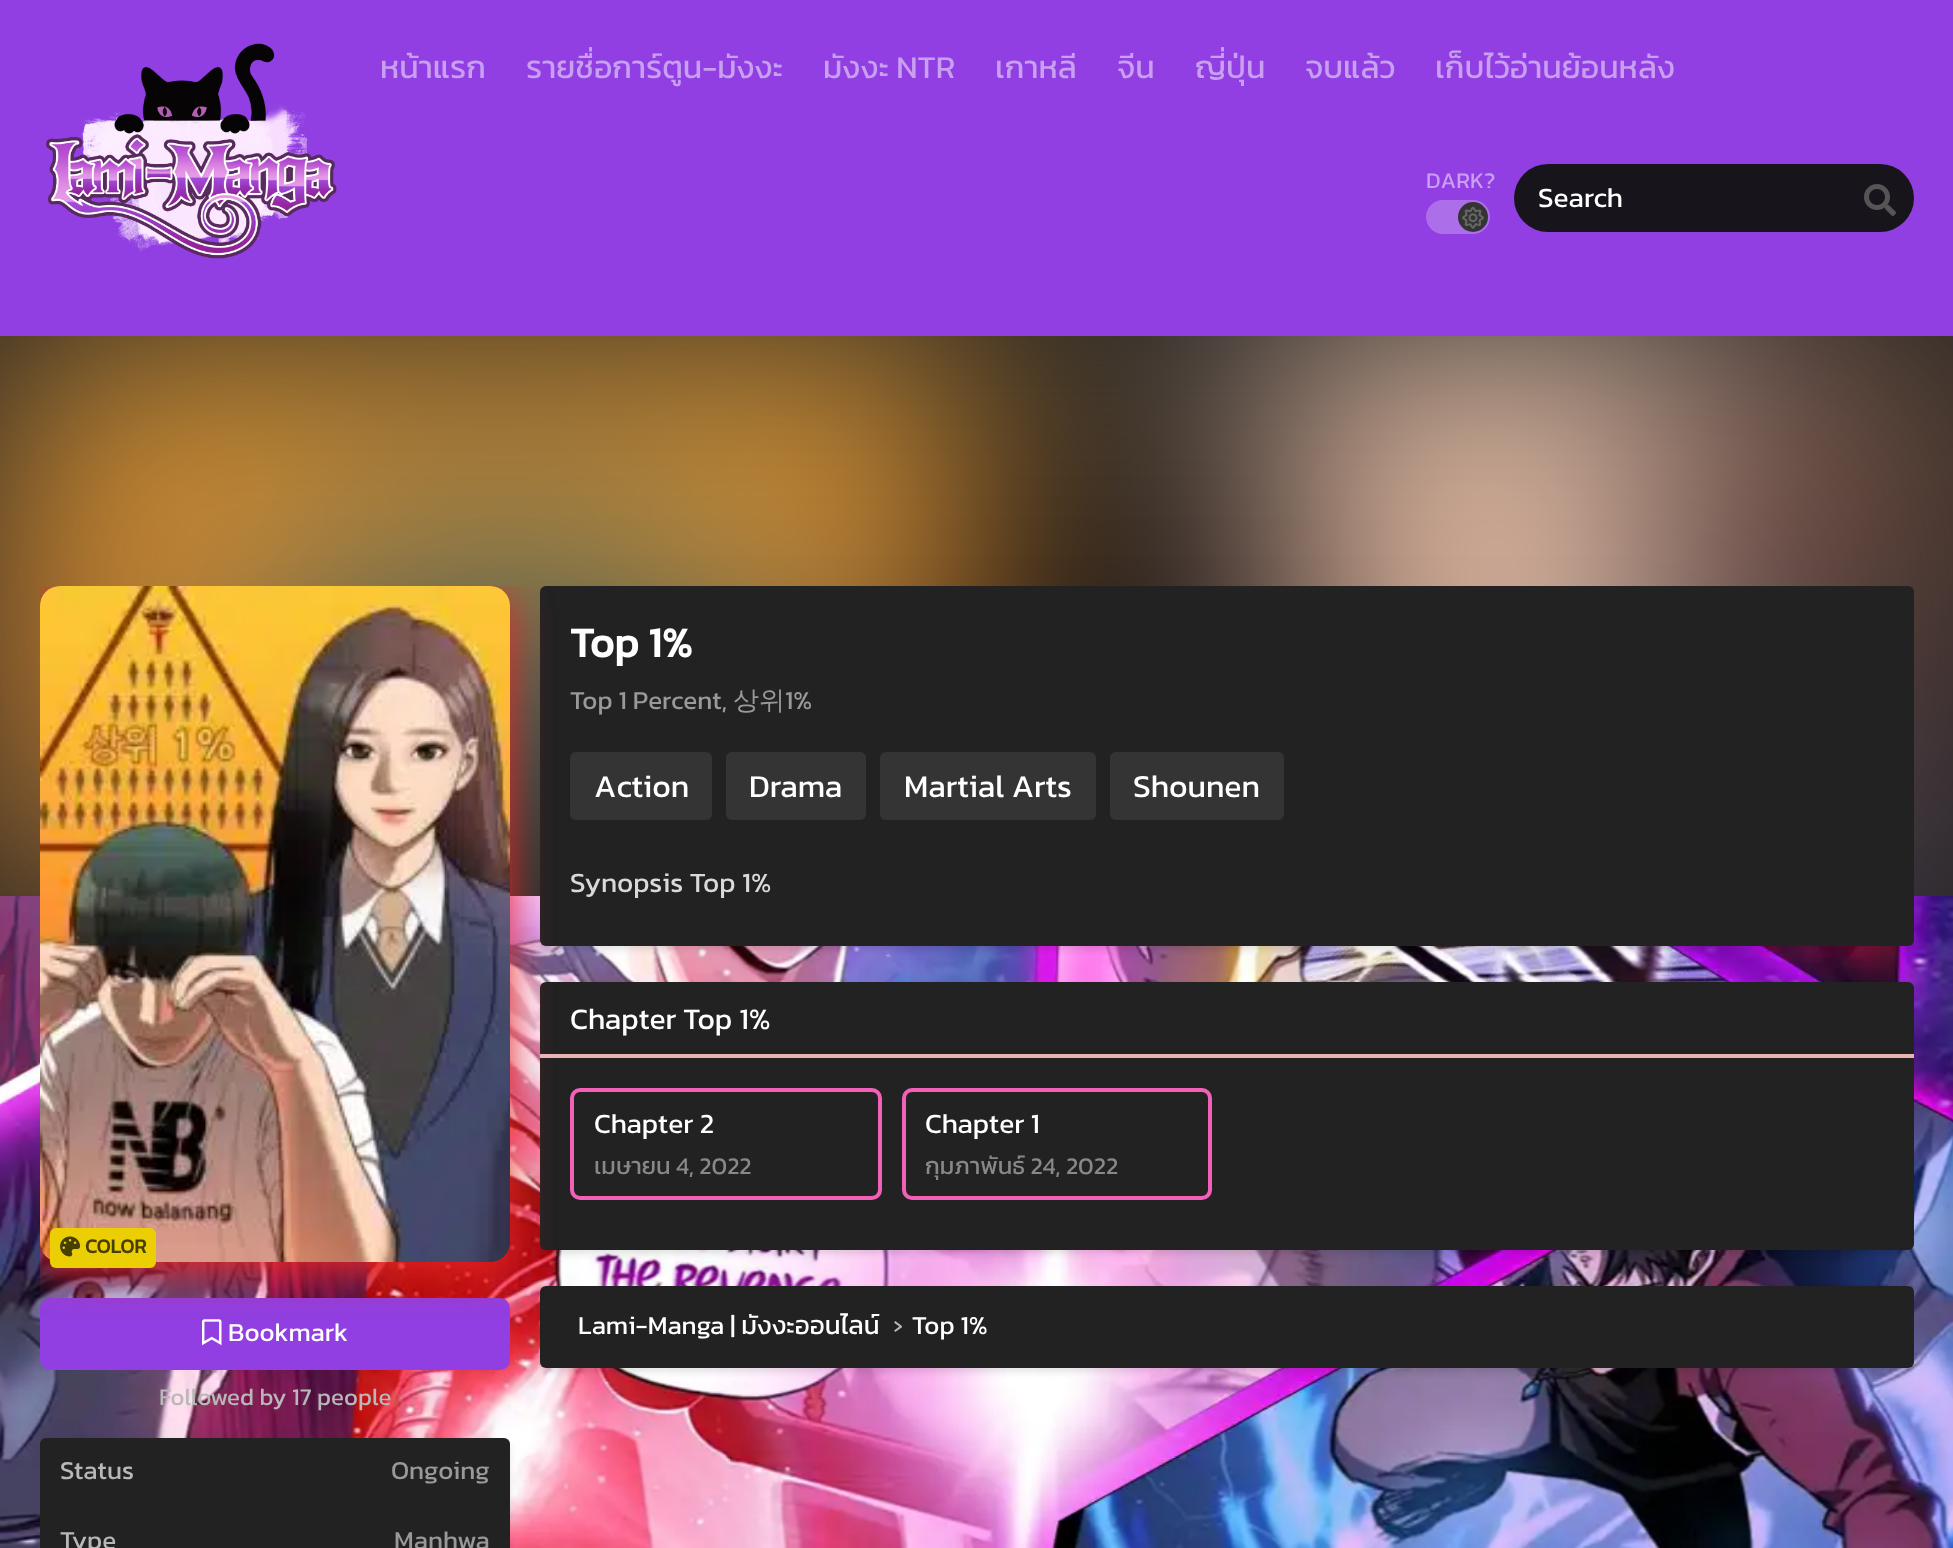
(async () => {
  const canvas = document.querySelector("canvas");
  canvas.width = 1953;
  canvas.height = 1548;
  const ctx = canvas.getContext("2d");
  ctx.miterLimit = 4;
  ctx.fontKerning = "normal";
  async function loadImage(src) {
    const img = new Image();
    img.src = src;
    await img.decode();
    return img;
  }

  ctx.fillStyle = "#ffffff";
  ctx.fillRect(0, 0, 1953, 1548);
  ctx.drawImage(await loadImage("img/1.png"), 0, 896, 1953, 652);
  ctx.fillStyle = "#913fe2";
  ctx.fillRect(0, 0, 1953, 336);
  ctx.drawImage(await loadImage("img/2.png"), 46, 43, 291, 216);
  ctx.fillStyle = "#ad6fe9";
  ctx.beginPath();
  ctx.roundRect(1426, 200, 64, 34, 17);
  ctx.fill();
  ctx.fillStyle = "#333333";
  ctx.beginPath();
  ctx.arc(1473, 217, 15, 0, Math.PI * 2);
  ctx.fill();
  ctx.drawImage(await loadImage("img/3.png"), 1462, 206, 22, 23);
  ctx.fillStyle = "#17151b";
  ctx.beginPath();
  ctx.roundRect(1514, 164, 400, 68, 34);
  ctx.fill();
  ctx.drawImage(await loadImage("img/4.png"), 1864, 184, 32, 32);
  ctx.fillStyle = "#222222";
  ctx.fillRect(0, 336, 1953, 560);
  ctx.drawImage(await loadImage("img/5.png"), 0, 336, 1953, 560);
  ctx.save();
  ctx.beginPath();
  ctx.rect(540, 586, 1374, 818);
  ctx.clip();
  ctx.fillStyle = "rgba(0, 0, 0, 0.1)";
  ctx.filter = "blur(3px)";
  ctx.beginPath();
  ctx.roundRect(540, 590, 1374, 360, 6);
  ctx.fill();
  ctx.filter = "none";
  ctx.restore();
  ctx.beginPath();
  ctx.roundRect(540, 586, 1374, 360, 6);
  ctx.fill();
  ctx.fillStyle = "#343434";
  ctx.beginPath();
  ctx.roundRect(570, 752, 142, 68, 6);
  ctx.fill();
  ctx.beginPath();
  ctx.roundRect(726, 752, 140, 68, 6);
  ctx.fill();
  ctx.beginPath();
  ctx.roundRect(880, 752, 216, 68, 6);
  ctx.fill();
  ctx.beginPath();
  ctx.roundRect(1110, 752, 174, 68, 6);
  ctx.fill();
  ctx.save();
  ctx.beginPath();
  ctx.rect(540, 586, 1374, 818);
  ctx.clip();
  ctx.fillStyle = "rgba(0, 0, 0, 0.1)";
  ctx.filter = "blur(3px)";
  ctx.beginPath();
  ctx.roundRect(540, 986, 1374, 268, 6);
  ctx.fill();
  ctx.filter = "none";
  ctx.restore();
  ctx.fillStyle = "#222222";
  ctx.beginPath();
  ctx.roundRect(540, 982, 1374, 268, 6);
  ctx.fill();
  ctx.save();
  ctx.beginPath();
  ctx.rect(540, 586, 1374, 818);
  ctx.clip();
  ctx.fillStyle = "rgba(0, 0, 0, 0.1)";
  ctx.filter = "blur(3px)";
  ctx.beginPath();
  ctx.roundRect(540, 1290, 1374, 82, 6);
  ctx.fill();
  ctx.filter = "none";
  ctx.restore();
  ctx.beginPath();
  ctx.roundRect(540, 1286, 1374, 82, 6);
  ctx.fill();
  ctx.fillStyle = "#913fe2";
  ctx.beginPath();
  ctx.roundRect(40, 1298, 470, 72, 10);
  ctx.fill();
  ctx.drawImage(await loadImage("img/8.png"), 202, 1319, 20, 27);
  ctx.save();
  ctx.beginPath();
  ctx.rect(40, 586, 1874, 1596);
  ctx.clip();
  ctx.fillStyle = "#eb2626";
  ctx.filter = "blur(20px)";
  ctx.beginPath();
  ctx.roundRect(40, 596, 470, 676, 20);
  ctx.fill();
  ctx.filter = "none";
  ctx.restore();
  ctx.fillStyle = "#edb3b3";
  ctx.fillRect(540, 1054, 1374, 4);
  ctx.beginPath();
  ctx.roundRect(572, 1090, 308, 108, 8);
  ctx.strokeStyle = "#f360b8";
  ctx.lineWidth = 4;
  ctx.stroke();
  ctx.beginPath();
  ctx.roundRect(904, 1090, 306, 108, 8);
  ctx.stroke();
  ctx.drawImage(await loadImage("img/6.png"), 40, 586, 470, 676);
  ctx.fillStyle = "#ebcf04";
  ctx.beginPath();
  ctx.roundRect(50, 1228, 106, 40, 6);
  ctx.fill();
  ctx.drawImage(await loadImage("img/7.png"), 60, 1236, 20, 21);
  ctx.save();
  ctx.beginPath();
  ctx.rect(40, 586, 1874, 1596);
  ctx.clip();
  ctx.fillStyle = "rgba(0, 0, 0, 0.1)";
  ctx.filter = "blur(3px)";
  ctx.beginPath();
  ctx.roundRect(40, 1442, 470, 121, 6);
  ctx.fill();
  ctx.filter = "none";
  ctx.restore();
  ctx.fillStyle = "#222222";
  ctx.beginPath();
  ctx.roundRect(40, 1438, 470, 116, 6);
  ctx.fill();
  ctx.font = "32px Kanit";
  ctx.fillStyle = "#c89ff1";
  for (const [text, x, y] of [
    ["หน้าแรก", 380, 78],
    ["รายชื่อการ์ตูน-มังงะ", 526, 78],
    ["มังงะ NTR", 823, 78],
    ["เกาหลี", 995, 78],
    ["จีน", 1117, 78],
    ["ญี่ปุ่น", 1195, 78],
    ["จบแล้ว", 1305, 78],
    ["เก็บไว้อ่านย้อนหลัง", 1435, 78],
  ]) {
    ctx.fillText(text, x, y);
  }
  ctx.font = "22.5px Kanit";
  ctx.fillText("DARK?", 1426, 188);
  ctx.font = "28px Kanit";
  ctx.fillStyle = "#ffffff";
  ctx.fillText("Search", 1538, 207);
  ctx.font = "bold 42px Kanit";
  ctx.fillText("Top 1%", 570, 657);
  ctx.font = "26px Kanit";
  ctx.fillStyle = "#999999";
  ctx.fillText("Top 1 Percent,", 570, 709);
  ctx.font = "500 26px WenQuanYi Zen Hei";
  ctx.fillText("상위", 733, 709);
  ctx.font = "26px Kanit";
  ctx.fillText("1%", 785, 709);
  ctx.font = "32px Kanit";
  ctx.fillStyle = "#ffffff";
  for (const [text, x, y] of [
    ["Action", 594, 797],
    ["Drama", 749, 797],
    ["Martial Arts", 904, 797],
    ["Shounen", 1133, 797],
  ]) {
    ctx.fillText(text, x, y);
  }
  ctx.font = "28px Kanit";
  ctx.fillStyle = "#d9d9d9";
  ctx.fillText("Synopsis Top 1%", 570, 892);
  ctx.font = "30px Kanit";
  ctx.fillStyle = "#ffffff";
  ctx.fillText("Chapter Top 1%", 570, 1029);
  ctx.font = "28px Kanit";
  ctx.fillText("Chapter 2", 594, 1133);
  ctx.font = "24px Kanit";
  ctx.fillStyle = "#888888";
  ctx.fillText("เมษายน 4, 2022", 594, 1174);
  ctx.font = "28px Kanit";
  ctx.fillStyle = "#ffffff";
  ctx.fillText("Chapter 1", 925, 1133);
  ctx.font = "24px Kanit";
  ctx.fillStyle = "#888888";
  ctx.fillText("กุมภาพันธ์ 24, 2022", 925, 1174);
  ctx.font = "26px Kanit";
  ctx.fillStyle = "#ffffff";
  ctx.fillText("Lami-Manga | มังงะออนไลน์", 578, 1334);
  ctx.fillStyle = "#b8b8b8";
  ctx.fillText("›", 893, 1334);
  ctx.fillStyle = "#ffffff";
  ctx.fillText("Top 1%", 912, 1334);
  ctx.font = "bold 20px Kanit";
  ctx.fillStyle = "#473e01";
  ctx.fillText("COLOR", 85, 1253);
  ctx.font = "26px Kanit";
  ctx.fillStyle = "#ffffff";
  ctx.fillText("Bookmark", 228, 1341);
  ctx.font = "24px Kanit";
  ctx.fillStyle = "#b8b8b8";
  ctx.fillText("Followed by 17 people", 159, 1405);
  ctx.font = "26px Kanit";
  ctx.fillText("Status", 60, 1479);
  ctx.fillStyle = "#999999";
  ctx.fillText("Ongoing", 391, 1479);
  ctx.fillStyle = "#b8b8b8";
  ctx.fillText("Type", 60, 1549);
  ctx.fillStyle = "#999999";
  ctx.fillText("Manhwa", 394, 1549);
})();
